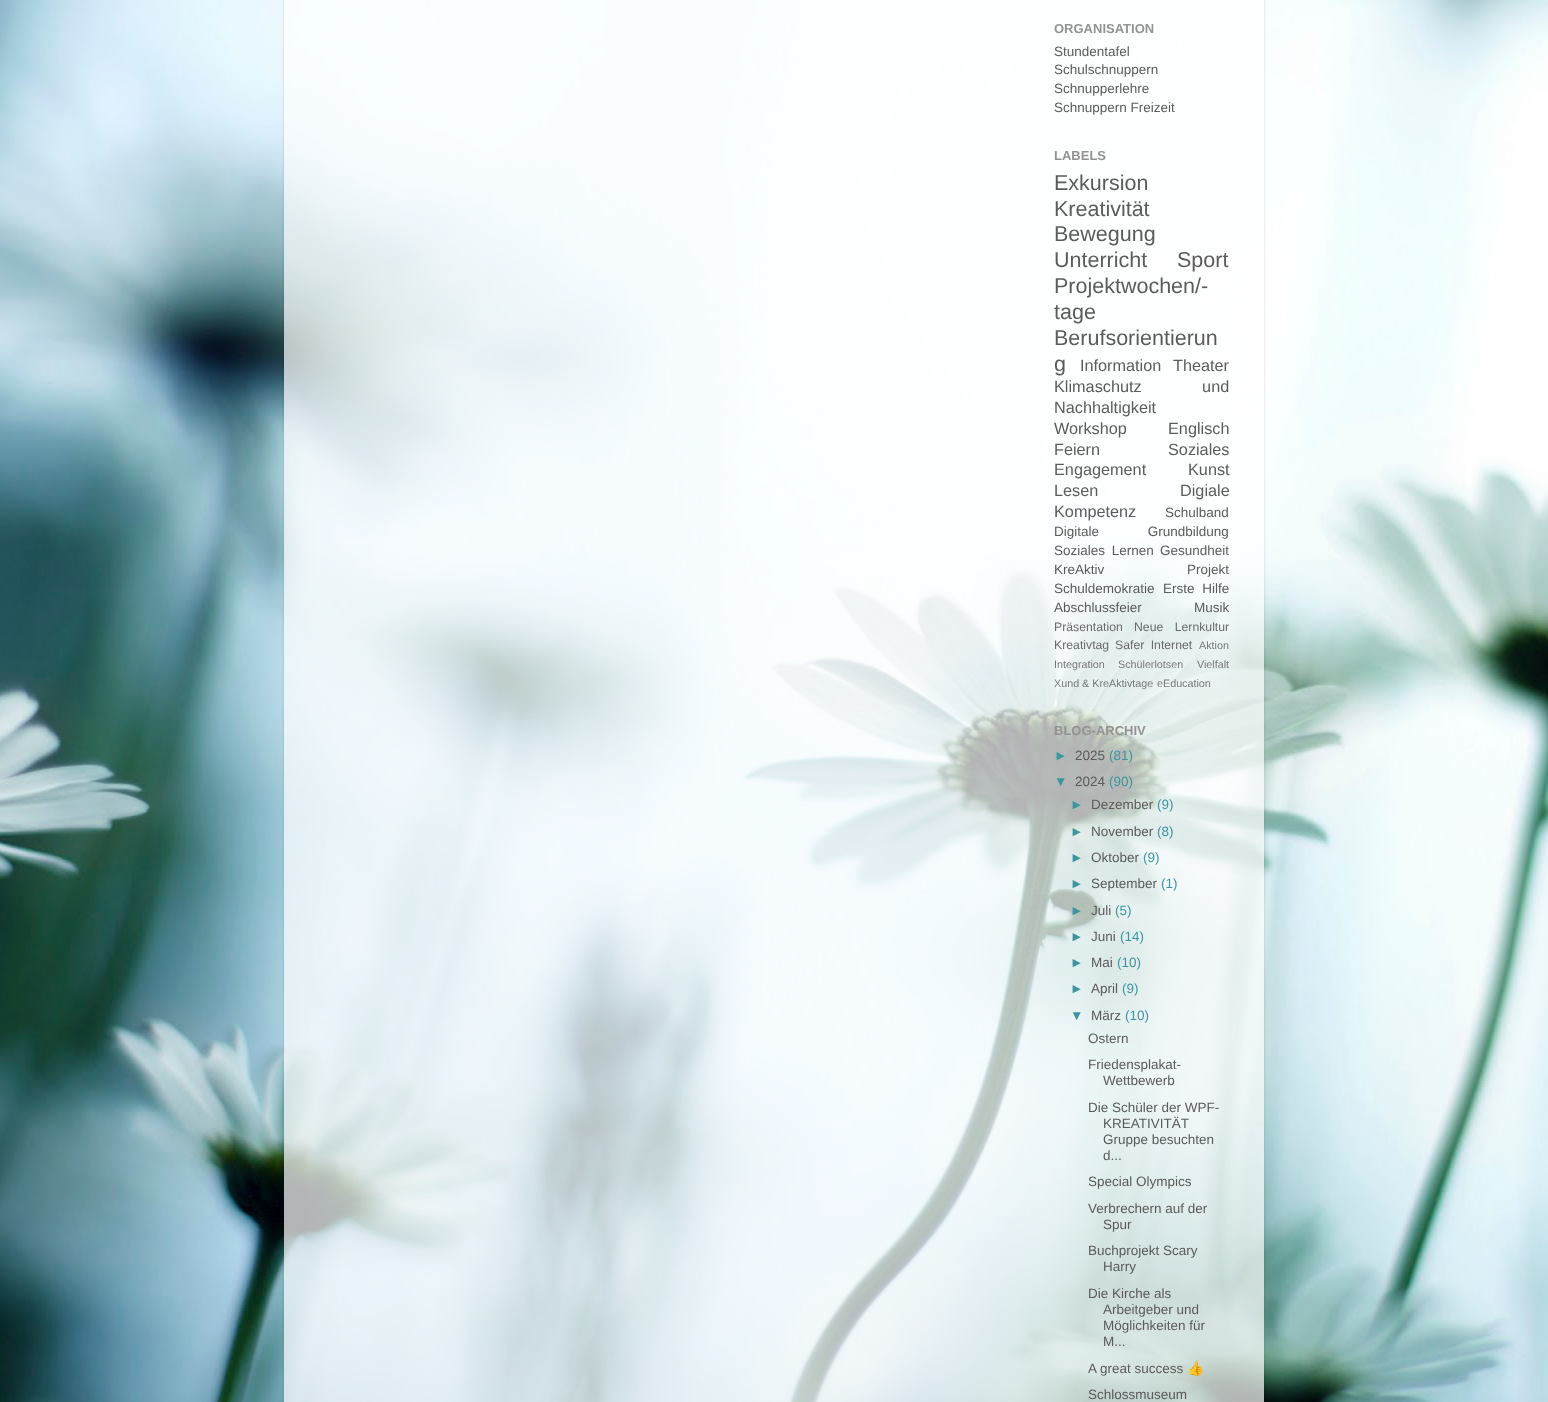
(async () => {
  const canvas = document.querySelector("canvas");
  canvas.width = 1548;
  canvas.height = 1402;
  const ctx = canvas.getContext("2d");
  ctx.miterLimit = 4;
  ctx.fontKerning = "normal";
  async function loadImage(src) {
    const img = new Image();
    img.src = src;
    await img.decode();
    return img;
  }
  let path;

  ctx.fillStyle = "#ffffff";
  ctx.fillRect(0, 0, 1548, 1402);
  ctx.drawImage(await loadImage("img/1.png"), 0, 0, 1548, 1402);
  ctx.save();
  path = new Path2D("M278 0H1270V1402H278ZM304-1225H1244C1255-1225 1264-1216 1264-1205V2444H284V-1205C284-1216 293-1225 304-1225Z");
  ctx.clip(path, "evenodd");
  ctx.fillStyle = "rgba(0, 0, 0, 0.15)";
  ctx.filter = "blur(1.5px)";
  ctx.beginPath();
  ctx.roundRect(284, -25, 980, 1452, 20);
  ctx.fill();
  ctx.filter = "none";
  ctx.restore();
  ctx.fillStyle = "rgba(255, 255, 255, 0.7)";
  ctx.fillRect(284, 0, 980, 1402);
  ctx.font = "bold 13px Liberation Sans";
  ctx.fillStyle = "#939393";
  ctx.fillText("ORGANISATION", 1054, 33);
  ctx.font = "13.5px Liberation Sans";
  ctx.fillStyle = "#5b5b5b";
  for (const [text, x, y] of [
    ["Stundentafel", 1054, 56],
    ["Schulschnuppern", 1054, 74],
    ["Schnupperlehre", 1054, 93],
    ["Schnuppern Freizeit", 1054, 112],
  ]) {
    ctx.fillText(text, x, y);
  }
  ctx.font = "bold 13px Liberation Sans";
  ctx.fillStyle = "#939393";
  ctx.fillText("LABELS", 1054, 160);
  ctx.font = "21.5px Liberation Sans";
  ctx.fillStyle = "#5b5b5b";
  for (const [text, x, y] of [
    ["Exkursion", 1054, 190],
    ["Kreativität", 1054, 216],
    ["Bewegung", 1054, 241],
    ["Unterricht", 1054, 267],
    ["Sport", 1177, 267],
    ["Projektwochen/-", 1054, 293],
    ["tage", 1054, 319],
    ["Berufsorientierun", 1054, 345],
    ["g", 1054, 371],
  ]) {
    ctx.fillText(text, x, y);
  }
  ctx.font = "16.25px Liberation Sans";
  ctx.fillText("Information", 1080, 371);
  ctx.fillText("Theater", 1173, 371);
  ctx.wordSpacing = "56px";
  ctx.fillText("Klimaschutz und", 1054, 392);
  ctx.wordSpacing = "0px";
  for (const [text, x, y] of [
    ["Nachhaltigkeit", 1054, 413],
    ["Workshop", 1054, 434],
    ["Englisch", 1168, 434],
    ["Feiern", 1054, 455],
    ["Soziales", 1168, 455],
    ["Engagement", 1054, 475],
    ["Kunst", 1188, 475],
    ["Lesen", 1054, 496],
    ["Digiale", 1180, 496],
    ["Kompetenz", 1054, 517],
  ]) {
    ctx.fillText(text, x, y);
  }
  ctx.font = "13.5px Liberation Sans";
  ctx.fillText("Schulband", 1165, 517);
  ctx.wordSpacing = "45px";
  ctx.fillText("Digitale Grundbildung", 1054, 536);
  ctx.wordSpacing = "3px";
  ctx.fillText("Soziales Lernen", 1054, 555);
  ctx.wordSpacing = "0px";
  for (const [text, x, y] of [
    ["Gesundheit", 1160, 555],
    ["KreAktiv", 1054, 574],
    ["Projekt", 1187, 574],
    ["Schuldemokratie", 1054, 593],
  ]) {
    ctx.fillText(text, x, y);
  }
  ctx.wordSpacing = "4px";
  ctx.fillText("Erste Hilfe", 1163, 593);
  ctx.wordSpacing = "0px";
  ctx.fillText("Abschlussfeier", 1054, 612);
  ctx.fillText("Musik", 1194, 612);
  ctx.font = "12.25px Liberation Sans";
  ctx.fillStyle = "#6a6a6a";
  ctx.fillText("Präsentation", 1054, 631);
  ctx.wordSpacing = "8px";
  ctx.fillText("Neue Lernkultur", 1134, 631);
  ctx.wordSpacing = "0px";
  ctx.fillText("Kreativtag", 1054, 649);
  ctx.wordSpacing = "3px";
  ctx.fillText("Safer Internet", 1115, 649);
  ctx.wordSpacing = "0px";
  ctx.font = "10.75px Liberation Sans";
  ctx.fillStyle = "#787979";
  for (const [text, x, y] of [
    ["Aktion", 1199, 649],
    ["Integration", 1054, 668],
    ["Schülerlotsen", 1118, 668],
    ["Vielfalt", 1197, 668],
    ["Xund & KreAktivtage", 1054, 687],
    ["eEducation", 1157, 687],
  ]) {
    ctx.fillText(text, x, y);
  }
  ctx.font = "bold 13px Liberation Sans";
  ctx.fillStyle = "#939393";
  ctx.fillText("BLOG-ARCHIV", 1054, 735);
  ctx.font = "13.5px Liberation Sans";
  ctx.fillStyle = "#3e959f";
  ctx.fillText("►", 1054, 760);
  ctx.fillStyle = "#5b5b5b";
  ctx.fillText("2025", 1075, 760);
  ctx.fillStyle = "#3e959f";
  ctx.fillText("(81)", 1109, 760);
  ctx.fillText("▼", 1054, 786);
  ctx.fillStyle = "#5b5b5b";
  ctx.fillText("2024", 1075, 786);
  ctx.fillStyle = "#3e959f";
  ctx.fillText("(90)", 1109, 786);
  ctx.fillText("►", 1070, 809);
  ctx.fillStyle = "#5b5b5b";
  ctx.fillText("Dezember", 1091, 809);
  ctx.fillStyle = "#3e959f";
  ctx.fillText("(9)", 1157, 809);
  ctx.fillText("►", 1070, 836);
  ctx.fillStyle = "#5b5b5b";
  ctx.fillText("November", 1091, 836);
  ctx.fillStyle = "#3e959f";
  ctx.fillText("(8)", 1157, 836);
  ctx.fillText("►", 1070, 862);
  ctx.fillStyle = "#5b5b5b";
  ctx.fillText("Oktober", 1091, 862);
  ctx.fillStyle = "#3e959f";
  ctx.fillText("(9)", 1143, 862);
  ctx.fillText("►", 1070, 888);
  ctx.fillStyle = "#5b5b5b";
  ctx.fillText("September", 1091, 888);
  ctx.fillStyle = "#3e959f";
  ctx.fillText("(1)", 1161, 888);
  ctx.fillText("►", 1070, 915);
  ctx.fillStyle = "#5b5b5b";
  ctx.fillText("Juli", 1091, 915);
  ctx.fillStyle = "#3e959f";
  ctx.fillText("(5)", 1115, 915);
  ctx.fillText("►", 1070, 941);
  ctx.fillStyle = "#5b5b5b";
  ctx.fillText("Juni", 1091, 941);
  ctx.fillStyle = "#3e959f";
  ctx.fillText("(14)", 1120, 941);
  ctx.fillText("►", 1070, 967);
  ctx.fillStyle = "#5b5b5b";
  ctx.fillText("Mai", 1091, 967);
  ctx.fillStyle = "#3e959f";
  ctx.fillText("(10)", 1117, 967);
  ctx.fillText("►", 1070, 993);
  ctx.fillStyle = "#5b5b5b";
  ctx.fillText("April", 1091, 993);
  ctx.fillStyle = "#3e959f";
  ctx.fillText("(9)", 1122, 993);
  ctx.fillText("▼", 1070, 1020);
  ctx.fillStyle = "#5b5b5b";
  ctx.fillText("März", 1091, 1020);
  ctx.fillStyle = "#3e959f";
  ctx.fillText("(10)", 1125, 1020);
  ctx.fillStyle = "#5b5b5b";
  for (const [text, x, y] of [
    ["Ostern", 1088, 1043],
    ["Friedensplakat-", 1088, 1069],
    ["Wettbewerb", 1103, 1085],
    ["Die Schüler der WPF-", 1088, 1112],
    ["KREATIVITÄT", 1103, 1128],
    ["Gruppe besuchten", 1103, 1144],
    ["d...", 1103, 1160],
    ["Special Olympics", 1088, 1186],
    ["Verbrechern auf der", 1088, 1213],
    ["Spur", 1103, 1229],
    ["Buchprojekt Scary", 1088, 1255],
    ["Harry", 1103, 1271],
    ["Die Kirche als", 1088, 1298],
    ["Arbeitgeber und", 1103, 1314],
    ["Möglichkeiten für", 1103, 1330],
    ["M...", 1103, 1346],
    ["A great success", 1088, 1373],
  ]) {
    ctx.fillText(text, x, y);
  }
  ctx.font = "13.5px Noto Color Emoji";
  ctx.fillText("👍", 1187, 1373);
  ctx.font = "13.5px Liberation Sans";
  ctx.fillText("Schlossmuseum", 1088, 1399);
})();
